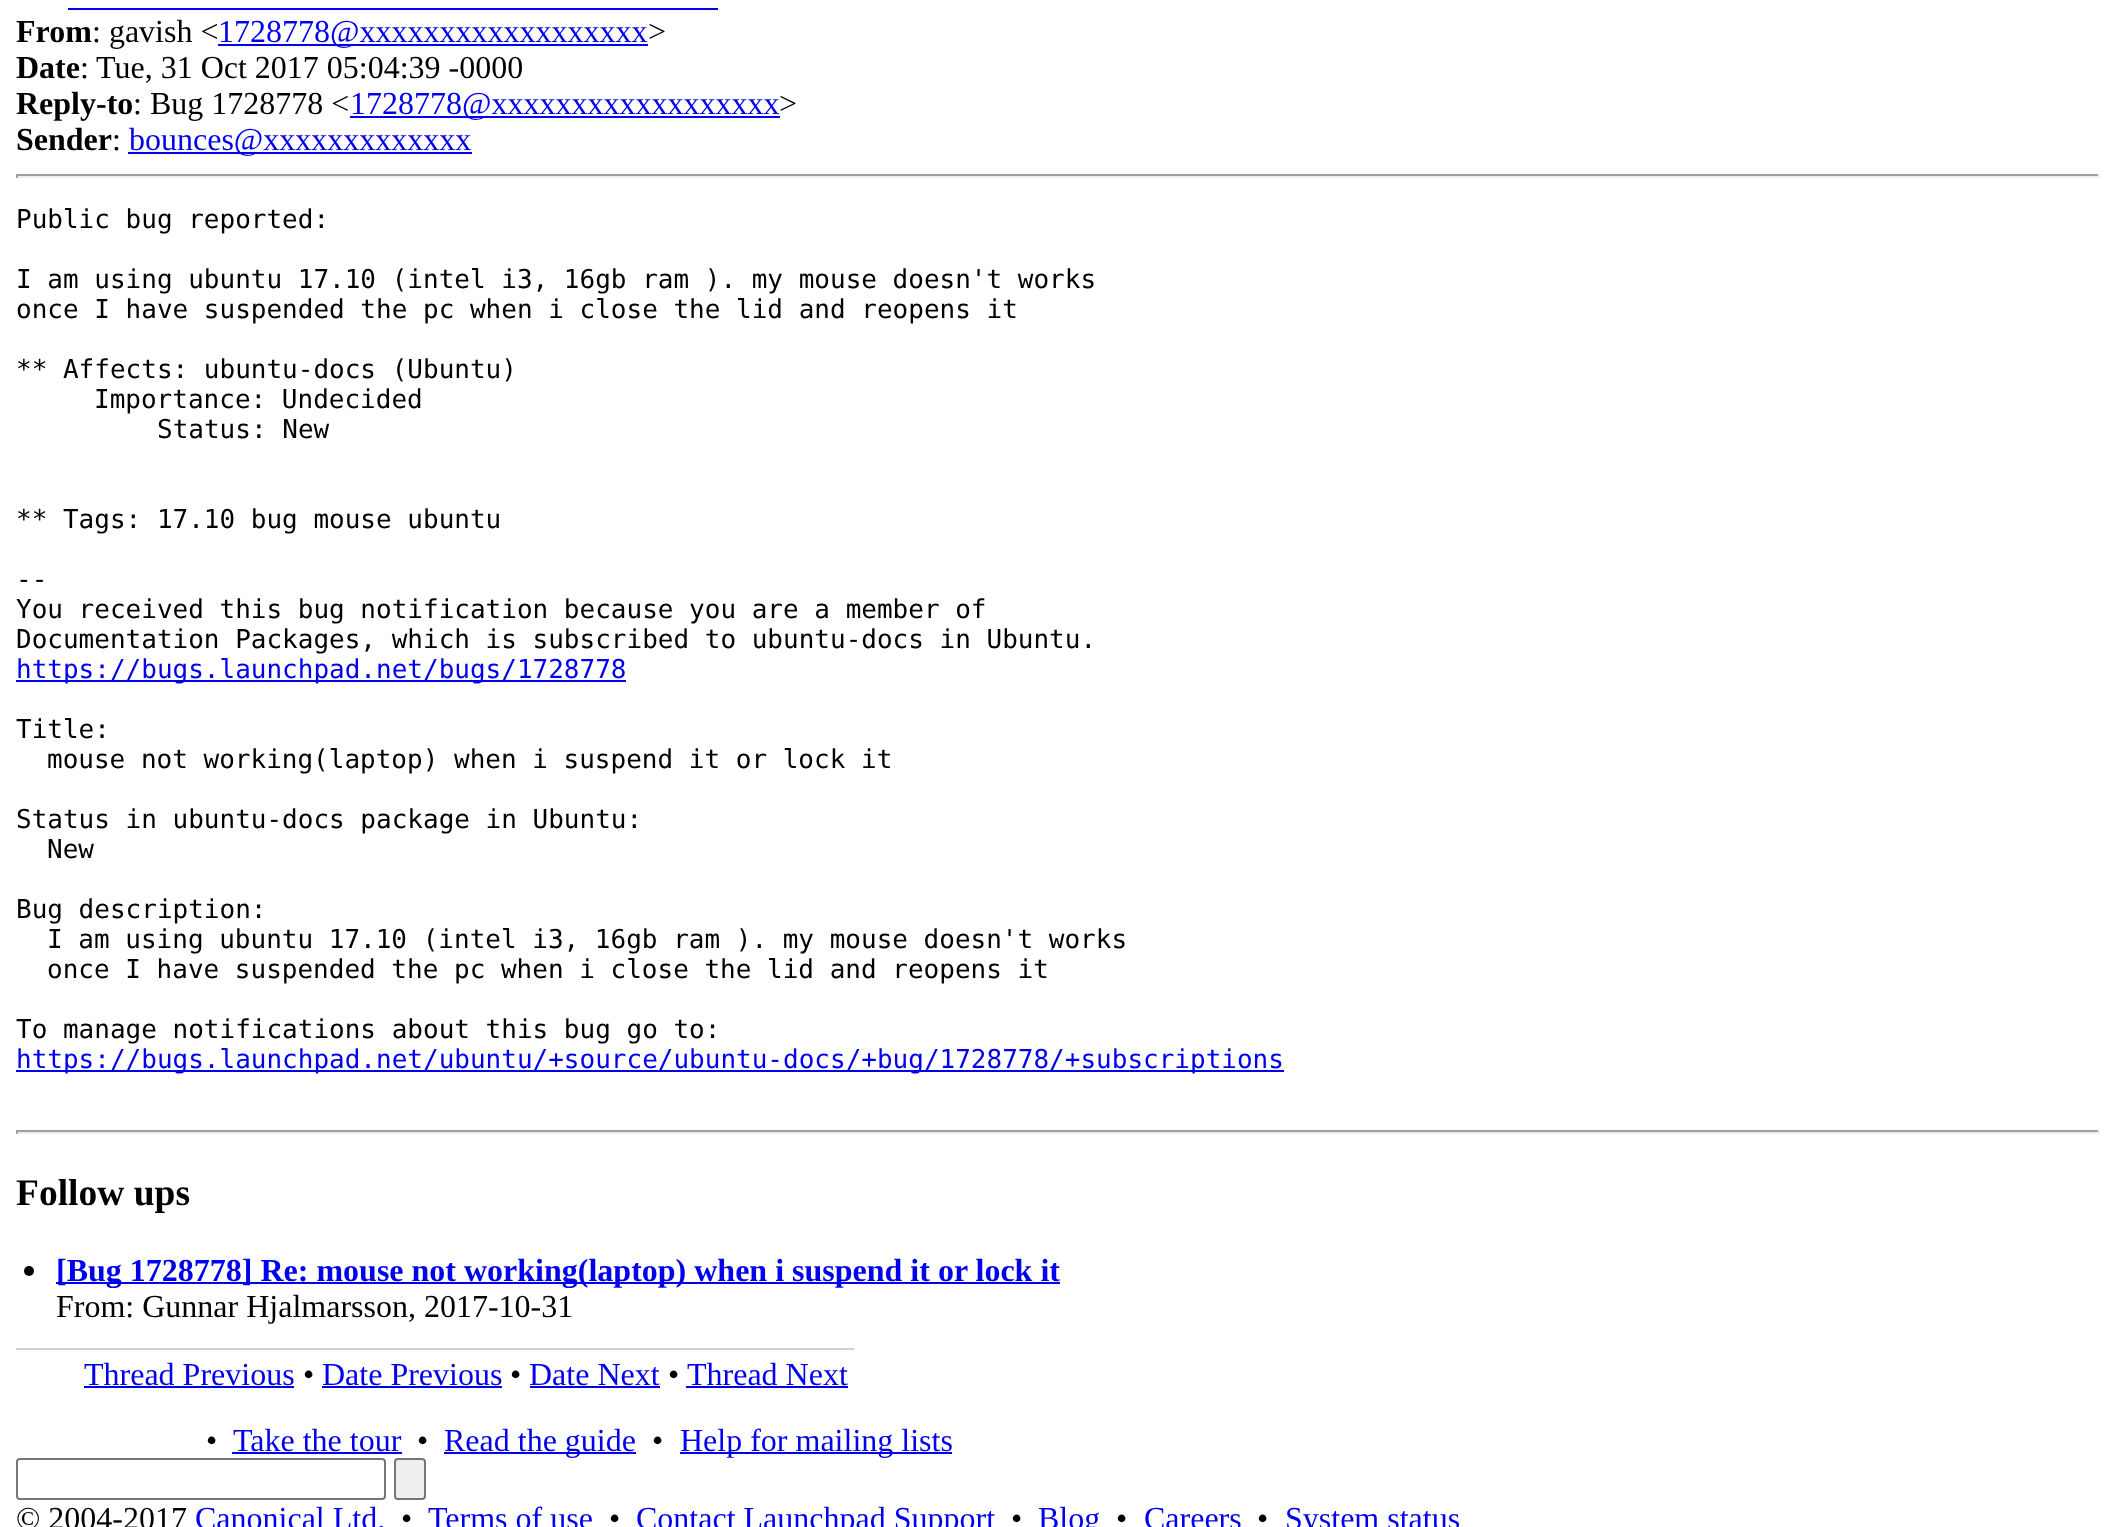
(async () => {
  const canvas = document.querySelector("canvas");
  canvas.width = 2115;
  canvas.height = 1527;
  const ctx = canvas.getContext("2d");
  ctx.miterLimit = 4;
  ctx.fontKerning = "normal";

  ctx.fillStyle = "#ffffff";
  ctx.fillRect(0, 0, 2115, 1527);
  for (const [x, y, w, h, color] of [
    [68, 8, 650, 2, "#0000ee"],
    [218, 44, 430, 2, "#0000ee"],
    [350, 116, 430, 2, "#0000ee"],
    [128, 152, 344, 2, "#0000ee"],
    [16, 174, 2084, 2, "#9f9f9f"],
    [2098, 174, 2, 4, "#eeeeee"],
    [16, 176, 2084, 2, "#eeeeee"],
    [16, 174, 2, 4, "#9f9f9f"],
    [16, 680, 610, 2, "#0000ee"],
    [16, 1070, 1268, 2, "#0000ee"],
    [16, 1130, 2084, 2, "#9f9f9f"],
    [2098, 1130, 2, 4, "#eeeeee"],
    [16, 1132, 2084, 2, "#eeeeee"],
    [16, 1130, 2, 4, "#9f9f9f"],
  ]) {
    ctx.fillStyle = color;
    ctx.fillRect(x, y, w, h);
  }
  ctx.fillStyle = "#000000";
  ctx.beginPath();
  ctx.arc(29, 1271, 5, 0, Math.PI * 2);
  ctx.fill();
  for (const [x, y, w, h, color] of [
    [56, 1282, 1004, 2, "#0000ee"],
    [16, 1348, 838, 2, "#d2d2d2"],
    [84, 1386, 210, 2, "#0000ee"],
    [322, 1386, 180, 2, "#0000ee"],
    [530, 1386, 130, 2, "#0000ee"],
    [686, 1386, 162, 2, "#0000ee"],
    [232, 1452, 170, 2, "#0000ee"],
    [444, 1452, 192, 2, "#0000ee"],
    [680, 1452, 272, 2, "#0000ee"],
  ]) {
    ctx.fillStyle = color;
    ctx.fillRect(x, y, w, h);
  }
  ctx.beginPath();
  ctx.roundRect(17, 1459, 368, 40, 3);
  ctx.strokeStyle = "#767676";
  ctx.lineWidth = 2;
  ctx.stroke();
  ctx.fillStyle = "#efefef";
  ctx.beginPath();
  ctx.roundRect(395, 1459, 30, 40, 3);
  ctx.fill();
  ctx.stroke();
  ctx.font = "bold 32px Liberation Serif";
  ctx.fillStyle = "#000000";
  ctx.fillText("From", 16, 42);
  ctx.font = "32px Liberation Serif";
  ctx.fillText(": gavish <", 92, 42);
  ctx.fillStyle = "#0000ee";
  ctx.fillText("1728778@xxxxxxxxxxxxxxxxxx", 218, 42);
  ctx.fillStyle = "#000000";
  ctx.fillText(">", 648, 42);
  ctx.font = "bold 32px Liberation Serif";
  ctx.fillText("Date", 16, 78);
  ctx.font = "32px Liberation Serif";
  ctx.fillText(":", 80, 78);
  ctx.fillText("Tue, 31 Oct 2017 05:04:39 -0000", 96, 78);
  ctx.font = "bold 32px Liberation Serif";
  ctx.fillText("Reply-to", 16, 114);
  ctx.font = "32px Liberation Serif";
  ctx.fillText(": Bug 1728778 <", 133, 114);
  ctx.fillStyle = "#0000ee";
  ctx.fillText("1728778@xxxxxxxxxxxxxxxxxx", 350, 114);
  ctx.fillStyle = "#000000";
  ctx.fillText(">", 779, 114);
  ctx.font = "bold 32px Liberation Serif";
  ctx.fillText("Sender", 16, 150);
  ctx.font = "32px Liberation Serif";
  ctx.fillText(":", 112, 150);
  ctx.fillStyle = "#0000ee";
  ctx.fillText("bounces@xxxxxxxxxxxxx", 129, 150);
  ctx.font = "26px DejaVu Sans Mono";
  ctx.fillStyle = "#000000";
  for (const [text, x, y] of [
    ["Public bug reported:", 16, 228],
    ["I am using ubuntu 17.10 (intel i3, 16gb ram ). my mouse doesn't works", 16, 288],
    ["once I have suspended the pc when i close the lid and reopens it", 16, 318],
    ["** Affects: ubuntu-docs (Ubuntu)", 16, 378],
    ["Importance: Undecided", 94, 408],
    ["Status: New", 157, 438],
    ["** Tags: 17.10 bug mouse ubuntu", 16, 528],
    ["--", 16, 588],
    ["You received this bug notification because you are a member of", 16, 618],
    ["Documentation Packages, which is subscribed to ubuntu-docs in Ubuntu.", 16, 648],
  ]) {
    ctx.fillText(text, x, y);
  }
  ctx.fillStyle = "#0000ee";
  ctx.fillText("https://bugs.launchpad.net/bugs/1728778", 16, 678);
  ctx.fillStyle = "#000000";
  for (const [text, x, y] of [
    ["Title:", 16, 738],
    ["mouse not working(laptop) when i suspend it or lock it", 47, 768],
    ["Status in ubuntu-docs package in Ubuntu:", 16, 828],
    ["New", 47, 858],
    ["Bug description:", 16, 918],
    ["I am using ubuntu 17.10 (intel i3, 16gb ram ). my mouse doesn't works", 47, 948],
    ["once I have suspended the pc when i close the lid and reopens it", 47, 978],
    ["To manage notifications about this bug go to:", 16, 1038],
  ]) {
    ctx.fillText(text, x, y);
  }
  ctx.fillStyle = "#0000ee";
  ctx.fillText("https://bugs.launchpad.net/ubuntu/+source/ubuntu-docs/+bug/1728778/+subscriptions", 16, 1068);
  ctx.font = "bold 37.5px Liberation Serif";
  ctx.fillStyle = "#000000";
  ctx.fillText("Follow ups", 16, 1205);
  ctx.font = "bold 32px Liberation Serif";
  ctx.fillStyle = "#0000ee";
  ctx.fillText("[Bug 1728778] Re: mouse not working(laptop) when i suspend it or lock it", 56, 1281);
  ctx.font = "32px Liberation Serif";
  ctx.fillStyle = "#000000";
  ctx.fillText("From: Gunnar Hjalmarsson, 2017-10-31", 56, 1317);
  ctx.fillStyle = "#0000ee";
  ctx.fillText("Thread Previous", 84, 1385);
  ctx.fillStyle = "#000000";
  ctx.fillText("•", 303, 1385);
  ctx.fillStyle = "#0000ee";
  ctx.fillText("Date Previous", 322, 1385);
  ctx.fillStyle = "#000000";
  ctx.fillText("•", 510, 1385);
  ctx.fillStyle = "#0000ee";
  ctx.fillText("Date Next", 529, 1385);
  ctx.fillStyle = "#000000";
  ctx.fillText("•", 668, 1385);
  ctx.fillStyle = "#0000ee";
  ctx.fillText("Thread Next", 687, 1385);
  ctx.fillStyle = "#000000";
  ctx.fillText("•", 206, 1451);
  ctx.fillStyle = "#0000ee";
  ctx.fillText("Take the tour", 233, 1451);
  ctx.fillStyle = "#000000";
  ctx.fillText("•", 417, 1451);
  ctx.fillStyle = "#0000ee";
  ctx.fillText("Read the guide", 444, 1451);
  ctx.fillStyle = "#000000";
  ctx.fillText("•", 652, 1451);
  ctx.fillStyle = "#0000ee";
  ctx.fillText("Help for mailing lists", 680, 1451);
  ctx.fillStyle = "#000000";
  ctx.fillText("© 2004-2017", 16, 1529);
  ctx.fillStyle = "#0000ee";
  ctx.fillText("Canonical Ltd.", 195, 1529);
  ctx.fillStyle = "#000000";
  ctx.fillText("•", 401, 1529);
  ctx.fillStyle = "#0000ee";
  ctx.fillText("Terms of use", 428, 1529);
  ctx.fillStyle = "#000000";
  ctx.fillText("•", 609, 1529);
  ctx.fillStyle = "#0000ee";
  ctx.fillText("Contact Launchpad Support", 636, 1529);
  ctx.fillStyle = "#000000";
  ctx.fillText("•", 1011, 1529);
  ctx.fillStyle = "#0000ee";
  ctx.fillText("Blog", 1038, 1529);
  ctx.fillStyle = "#000000";
  ctx.fillText("•", 1116, 1529);
  ctx.fillStyle = "#0000ee";
  ctx.fillText("Careers", 1144, 1529);
  ctx.fillStyle = "#000000";
  ctx.fillText("•", 1257, 1529);
  ctx.fillStyle = "#0000ee";
  ctx.fillText("System status", 1285, 1529);
})();
